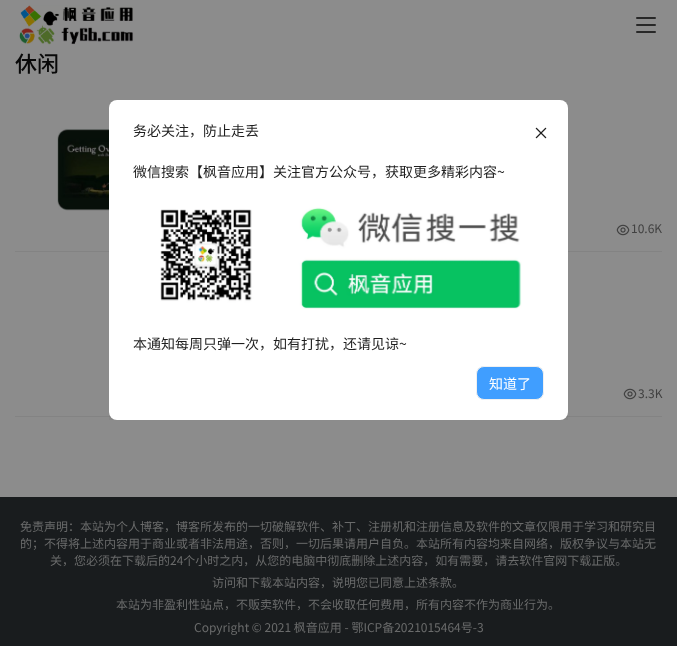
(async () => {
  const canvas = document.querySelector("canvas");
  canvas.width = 677;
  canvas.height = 646;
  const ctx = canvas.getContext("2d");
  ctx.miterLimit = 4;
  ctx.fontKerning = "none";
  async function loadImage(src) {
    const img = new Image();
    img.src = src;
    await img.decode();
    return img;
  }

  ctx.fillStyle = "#8c8c8c";
  ctx.fillRect(0, 0, 677, 646);
  ctx.drawImage(await loadImage("img/1.png"), 19, 5, 115, 40);
  ctx.fillStyle = "#282828";
  ctx.beginPath();
  ctx.roundRect(636, 17, 20, 2, 1);
  ctx.fill();
  ctx.beginPath();
  ctx.roundRect(636, 24, 20, 2, 1);
  ctx.fill();
  ctx.beginPath();
  ctx.roundRect(636, 31, 20, 2, 1);
  ctx.fill();
  ctx.fillStyle = "#838383";
  ctx.fillRect(15, 251, 647, 1);
  ctx.drawImage(await loadImage("img/2.png"), 57, 128, 52, 83);
  ctx.drawImage(await loadImage("img/3.png"), 616, 224, 14, 12);
  ctx.fillRect(15, 416, 647, 1);
  ctx.drawImage(await loadImage("img/3.png"), 623, 388, 14, 12);
  ctx.save();
  ctx.beginPath();
  ctx.rect(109, 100, 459, 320);
  ctx.clip();
  ctx.fillStyle = "rgba(0, 0, 0, 0.08)";
  ctx.filter = "blur(8px)";
  ctx.beginPath();
  ctx.roundRect(109, 106, 459, 320, 8);
  ctx.fill();
  ctx.filter = "none";
  ctx.restore();
  ctx.fillStyle = "#ffffff";
  ctx.beginPath();
  ctx.roundRect(109, 100, 459, 320, 8);
  ctx.fill();
  ctx.drawImage(await loadImage("img/4.png"), 535, 127, 12, 12);
  ctx.drawImage(await loadImage("img/5.png"), 160, 207, 362, 102);
  ctx.fillStyle = "#f0f0f0";
  ctx.filter = "blur(0.5px)";
  ctx.beginPath();
  ctx.roundRect(476, 366, 68, 34, 8);
  ctx.fill();
  ctx.filter = "none";
  ctx.fillStyle = "#409eff";
  ctx.beginPath();
  ctx.roundRect(476.5, 366.5, 67, 33, 7.5);
  ctx.fill();
  ctx.strokeStyle = "#f0f0f0";
  ctx.stroke();
  ctx.fillStyle = "#191c1e";
  ctx.fillRect(0, 497, 677, 149);
  ctx.font = "500 22px Noto Sans CJK SC";
  ctx.fillStyle = "#090909";
  ctx.fillText("休闲", 15, 72);
  ctx.font = "12px Noto Sans CJK SC";
  ctx.fillStyle = "#414141";
  ctx.fillText("10.6K", 631, 233);
  ctx.fillText("3.3K", 638, 398);
  ctx.font = "14px Noto Sans CJK SC";
  ctx.fillStyle = "#1f1f1f";
  for (const [text, x, y] of [
    ["务必关注，防止走丢", 133, 136],
    ["微信搜索【枫音应用】关注官方公众号，获取更多精彩内容~", 133, 177],
    ["本通知每周只弹一次，如有打扰，还请见谅~", 133, 349],
  ]) {
    ctx.fillText(text, x, y);
  }
  ctx.fillStyle = "#ffffff";
  ctx.fillText("知道了", 489, 389);
  ctx.font = "12px Noto Sans CJK SC";
  ctx.fillStyle = "#6a6b6b";
  for (const [text, x, y] of [
    ["免责声明：本站为个人博客，博客所发布的一切破解软件、补丁、注册机和注册信息及软件的文章仅限用于学习和研究目", 20, 531],
    ["的；不得将上述内容用于商业或者非法用途，否则，一切后果请用户自负。本站所有内容均来自网络，版权争议与本站无", 20, 548],
    ["关，您必须在下载后的24个小时之内，从您的电脑中彻底删除上述内容，如有需要，请去软件官网下载正版。", 50, 565],
    ["访问和下载本站内容，说明您已同意上述条款。", 212, 587],
    ["本站为非盈利性站点，不贩卖软件，不会收取任何费用，所有内容不作为商业行为。", 116, 609],
    ["Copyright © 2021 枫音应用 - 鄂ICP备2021015464号-3", 194, 632],
  ]) {
    ctx.fillText(text, x, y);
  }
})();
